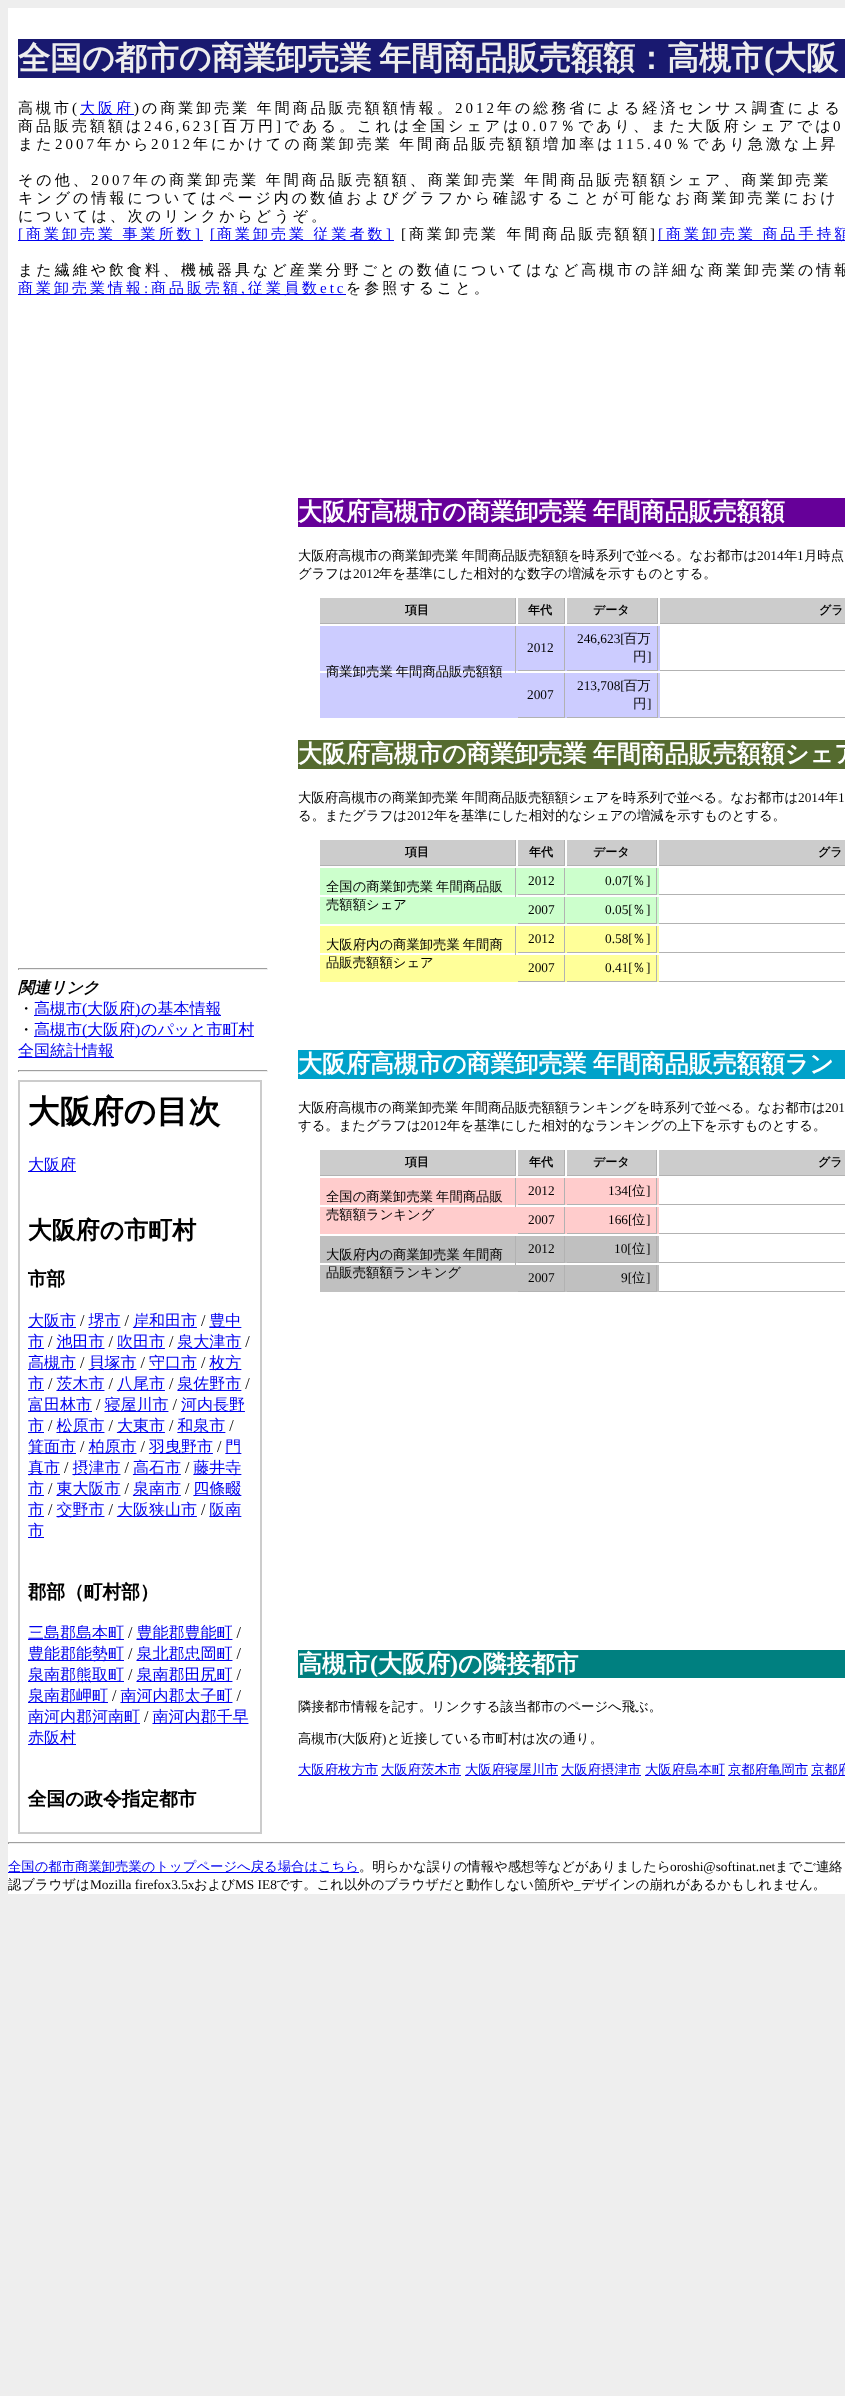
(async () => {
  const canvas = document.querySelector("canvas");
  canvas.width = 845;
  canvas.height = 2396;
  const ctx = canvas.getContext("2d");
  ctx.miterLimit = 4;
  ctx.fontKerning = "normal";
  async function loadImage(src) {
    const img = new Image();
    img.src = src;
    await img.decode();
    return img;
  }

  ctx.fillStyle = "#eeeeee";
  ctx.fillRect(0, 0, 845, 2396);
  for (const [x, y, w, h, color] of [
    [8, 8, 837, 1886, "#ffffff"],
    [18, 39, 827, 39, "#191970"],
    [80, 114, 54, 1, "#0000ee"],
    [18, 240, 185, 1, "#0000ee"],
    [210, 240, 184, 1, "#0000ee"],
    [658, 240, 187, 1, "#0000ee"],
    [18, 294, 328, 1, "#0000ee"],
    [18, 968, 250, 1, "#9f9f9f"],
    [267, 968, 1, 2, "#eeeeee"],
    [18, 969, 250, 1, "#eeeeee"],
    [18, 968, 1, 2, "#9f9f9f"],
    [34, 1015, 187, 1, "#0000ee"],
    [34, 1036, 220, 1, "#0000ee"],
    [18, 1057, 96, 1, "#0000ee"],
    [18, 1070, 250, 1, "#9f9f9f"],
    [267, 1070, 1, 2, "#eeeeee"],
    [18, 1071, 250, 1, "#eeeeee"],
    [18, 1070, 1, 2, "#9f9f9f"],
  ]) {
    ctx.fillStyle = color;
    ctx.fillRect(x, y, w, h);
  }
  ctx.strokeStyle = "#cccccc";
  ctx.lineWidth = 2;
  ctx.strokeRect(19, 1081, 242, 752);
  ctx.drawImage(await loadImage("img/1.png"), 27, 1094, 223, 715);
  for (const [x, y, w, h, color] of [
    [298, 498, 547, 29, "#660099"],
    [320, 598, 195, 25, "#cccccc"],
    [515, 598, 1, 26, "#b2b2b2"],
    [320, 623, 196, 1, "#b2b2b2"],
    [518, 598, 46, 25, "#cccccc"],
    [564, 598, 1, 26, "#b2b2b2"],
    [518, 623, 47, 1, "#b2b2b2"],
    [567, 598, 90, 25, "#cccccc"],
    [657, 598, 1, 26, "#b2b2b2"],
    [567, 623, 91, 1, "#b2b2b2"],
    [660, 598, 185, 25, "#cccccc"],
    [660, 623, 185, 1, "#b2b2b2"],
    [320, 626, 340, 45, "#ccccff"],
    [564, 626, 1, 45, "#b2b2b2"],
    [518, 670, 47, 1, "#b2b2b2"],
    [657, 626, 1, 45, "#b2b2b2"],
    [567, 670, 91, 1, "#b2b2b2"],
    [515, 626, 1, 47, "#b2b2b2"],
    [660, 670, 185, 1, "#b2b2b2"],
    [320, 673, 340, 45, "#ccccff"],
    [564, 673, 1, 45, "#b2b2b2"],
    [518, 717, 47, 1, "#b2b2b2"],
    [657, 673, 1, 45, "#b2b2b2"],
    [567, 717, 91, 1, "#b2b2b2"],
    [660, 717, 185, 1, "#b2b2b2"],
    [298, 740, 547, 29, "#556b2f"],
    [320, 840, 195, 25, "#cccccc"],
    [515, 840, 1, 26, "#b2b2b2"],
    [320, 865, 196, 1, "#b2b2b2"],
    [518, 840, 46, 25, "#cccccc"],
    [564, 840, 1, 26, "#b2b2b2"],
    [518, 865, 47, 1, "#b2b2b2"],
    [567, 840, 89, 25, "#cccccc"],
    [656, 840, 1, 26, "#b2b2b2"],
    [567, 865, 90, 1, "#b2b2b2"],
    [659, 840, 186, 25, "#cccccc"],
    [659, 865, 186, 1, "#b2b2b2"],
    [320, 868, 339, 27, "#ccffcc"],
    [515, 868, 1, 29, "#b2b2b2"],
    [564, 868, 1, 27, "#b2b2b2"],
    [518, 894, 47, 1, "#b2b2b2"],
    [656, 868, 1, 27, "#b2b2b2"],
    [567, 894, 90, 1, "#b2b2b2"],
    [659, 894, 186, 1, "#b2b2b2"],
    [320, 897, 339, 27, "#ccffcc"],
    [564, 897, 1, 27, "#b2b2b2"],
    [518, 923, 47, 1, "#b2b2b2"],
    [656, 897, 1, 27, "#b2b2b2"],
    [567, 923, 90, 1, "#b2b2b2"],
    [659, 923, 186, 1, "#b2b2b2"],
    [320, 926, 339, 27, "#ffff99"],
    [515, 926, 1, 29, "#b2b2b2"],
    [564, 926, 1, 27, "#b2b2b2"],
    [518, 952, 47, 1, "#b2b2b2"],
    [656, 926, 1, 27, "#b2b2b2"],
    [567, 952, 90, 1, "#b2b2b2"],
    [659, 952, 186, 1, "#b2b2b2"],
    [320, 955, 339, 27, "#ffff99"],
    [564, 955, 1, 27, "#b2b2b2"],
    [518, 981, 47, 1, "#b2b2b2"],
    [656, 955, 1, 27, "#b2b2b2"],
    [567, 981, 90, 1, "#b2b2b2"],
    [659, 981, 186, 1, "#b2b2b2"],
    [298, 1050, 547, 29, "#00a2ca"],
    [320, 1150, 195, 25, "#cccccc"],
    [515, 1150, 1, 26, "#b2b2b2"],
    [320, 1175, 196, 1, "#b2b2b2"],
    [518, 1150, 46, 25, "#cccccc"],
    [564, 1150, 1, 26, "#b2b2b2"],
    [518, 1175, 47, 1, "#b2b2b2"],
    [567, 1150, 89, 25, "#cccccc"],
    [656, 1150, 1, 26, "#b2b2b2"],
    [567, 1175, 90, 1, "#b2b2b2"],
    [659, 1150, 186, 25, "#cccccc"],
    [659, 1175, 186, 1, "#b2b2b2"],
    [320, 1178, 339, 27, "#ffcccc"],
    [515, 1178, 1, 29, "#b2b2b2"],
    [564, 1178, 1, 27, "#b2b2b2"],
    [518, 1204, 47, 1, "#b2b2b2"],
    [656, 1178, 1, 27, "#b2b2b2"],
    [567, 1204, 90, 1, "#b2b2b2"],
    [659, 1204, 186, 1, "#b2b2b2"],
    [320, 1207, 339, 27, "#ffcccc"],
    [564, 1207, 1, 27, "#b2b2b2"],
    [518, 1233, 47, 1, "#b2b2b2"],
    [656, 1207, 1, 27, "#b2b2b2"],
    [567, 1233, 90, 1, "#b2b2b2"],
    [659, 1233, 186, 1, "#b2b2b2"],
    [320, 1236, 339, 27, "#c0c0c0"],
    [515, 1236, 1, 29, "#b2b2b2"],
    [564, 1236, 1, 27, "#b2b2b2"],
    [518, 1262, 47, 1, "#b2b2b2"],
    [656, 1236, 1, 27, "#b2b2b2"],
    [567, 1262, 90, 1, "#b2b2b2"],
    [659, 1262, 186, 1, "#b2b2b2"],
    [320, 1265, 339, 27, "#c0c0c0"],
    [564, 1265, 1, 27, "#b2b2b2"],
    [518, 1291, 47, 1, "#b2b2b2"],
    [656, 1265, 1, 27, "#b2b2b2"],
    [567, 1291, 90, 1, "#b2b2b2"],
    [659, 1291, 186, 1, "#b2b2b2"],
    [298, 1650, 547, 28, "#008080"],
    [298, 1775, 80, 1, "#0000ee"],
    [381, 1775, 80, 1, "#0000ee"],
    [465, 1775, 93, 1, "#0000ee"],
    [561, 1775, 80, 1, "#0000ee"],
    [645, 1775, 80, 1, "#0000ee"],
    [728, 1775, 80, 1, "#0000ee"],
    [811, 1775, 34, 1, "#0000ee"],
    [8, 1842, 837, 1, "#9f9f9f"],
    [8, 1843, 837, 1, "#eeeeee"],
    [8, 1842, 1, 2, "#9f9f9f"],
    [8, 1872, 351, 1, "#0000ee"],
  ]) {
    ctx.fillStyle = color;
    ctx.fillRect(x, y, w, h);
  }
  ctx.wordSpacing = "-2px";
  ctx.font = "bold 32px WenQuanYi Zen Hei";
  ctx.fillStyle = "#eeeeee";
  ctx.fillText("全国の都市の商業卸売業 年間商品販売額額：高槻市", 18, 69);
  ctx.wordSpacing = "0px";
  ctx.font = "bold 32px Liberation Serif";
  ctx.fillText("(", 764, 69);
  ctx.font = "bold 32px WenQuanYi Zen Hei";
  ctx.fillText("大阪", 774, 69);
  ctx.letterSpacing = "3px";
  ctx.font = "500 15px WenQuanYi Zen Hei";
  ctx.fillStyle = "#000000";
  ctx.fillText("高槻市", 18, 113);
  ctx.font = "15px Liberation Serif";
  ctx.fillText("(", 72, 113);
  ctx.font = "500 15px WenQuanYi Zen Hei";
  ctx.fillStyle = "#0000ee";
  ctx.fillText("大阪府", 80, 113);
  ctx.font = "15px Liberation Serif";
  ctx.fillStyle = "#000000";
  ctx.fillText(")", 134, 113);
  ctx.wordSpacing = "-1px";
  ctx.font = "500 15px WenQuanYi Zen Hei";
  ctx.fillText("の商業卸売業 年間商品販売額額情報。", 142, 113);
  ctx.wordSpacing = "0px";
  ctx.font = "15px Liberation Serif";
  ctx.fillText("2012", 455, 113);
  ctx.wordSpacing = "-1px";
  ctx.font = "500 15px WenQuanYi Zen Hei";
  ctx.fillText("年の総務省による経済センサス調査による", 497, 113);
  ctx.wordSpacing = "0px";
  ctx.fillText("商品販売額額は", 18, 131);
  ctx.font = "15px Liberation Serif";
  ctx.fillText("246,623[", 144, 131);
  ctx.font = "500 15px WenQuanYi Zen Hei";
  ctx.fillText("百万円", 222, 131);
  ctx.font = "15px Liberation Serif";
  ctx.fillText("]", 276, 131);
  ctx.font = "500 15px WenQuanYi Zen Hei";
  ctx.fillText("である。これは全国シェアは", 284, 131);
  ctx.font = "15px Liberation Serif";
  ctx.fillText("0.07", 522, 131);
  ctx.font = "500 15px WenQuanYi Zen Hei";
  ctx.fillText("％であり、また大阪府シェアでは", 560, 131);
  ctx.font = "15px Liberation Serif";
  ctx.fillText("0", 833, 131);
  ctx.font = "500 15px WenQuanYi Zen Hei";
  ctx.fillText("また", 18, 149);
  ctx.font = "15px Liberation Serif";
  ctx.fillText("2007", 55, 149);
  ctx.font = "500 15px WenQuanYi Zen Hei";
  ctx.fillText("年から", 97, 149);
  ctx.font = "15px Liberation Serif";
  ctx.fillText("2012", 151, 149);
  ctx.wordSpacing = "-1px";
  ctx.font = "500 15px WenQuanYi Zen Hei";
  ctx.fillText("年にかけての商業卸売業 年間商品販売額額増加率は", 193, 149);
  ctx.wordSpacing = "0px";
  ctx.font = "15px Liberation Serif";
  ctx.fillText("115.40", 616, 149);
  ctx.font = "500 15px WenQuanYi Zen Hei";
  ctx.fillText("％であり急激な上昇", 675, 149);
  ctx.fillText("その他、", 18, 185);
  ctx.font = "15px Liberation Serif";
  ctx.fillText("2007", 91, 185);
  ctx.wordSpacing = "-1px";
  ctx.font = "500 15px WenQuanYi Zen Hei";
  ctx.fillText("年の商業卸売業 年間商品販売額額、商業卸売業 年間商品販売額額シェア、商業卸売業", 133, 185);
  ctx.wordSpacing = "0px";
  ctx.fillText("キングの情報についてはページ内の数値およびグラフから確認することが可能なお商業卸売業におけ", 18, 203);
  ctx.fillText("については、次のリンクからどうぞ。", 18, 221);
  ctx.font = "15px Liberation Serif";
  ctx.fillStyle = "#0000ee";
  ctx.fillText("[", 18, 239);
  ctx.wordSpacing = "-1px";
  ctx.font = "500 15px WenQuanYi Zen Hei";
  ctx.fillText("商業卸売業 事業所数", 26, 239);
  ctx.wordSpacing = "0px";
  ctx.font = "15px Liberation Serif";
  ctx.fillText("]", 195, 239);
  ctx.fillText("[", 210, 239);
  ctx.wordSpacing = "-1px";
  ctx.font = "500 15px WenQuanYi Zen Hei";
  ctx.fillText("商業卸売業 従業者数", 217, 239);
  ctx.wordSpacing = "0px";
  ctx.font = "15px Liberation Serif";
  ctx.fillText("]", 386, 239);
  ctx.fillStyle = "#000000";
  ctx.fillText("[", 401, 239);
  ctx.font = "500 15px WenQuanYi Zen Hei";
  ctx.fillText("商業卸売業 年間商品販売額額", 409, 239);
  ctx.font = "15px Liberation Serif";
  ctx.fillText("]", 650, 239);
  ctx.fillStyle = "#0000ee";
  ctx.fillText("[", 658, 239);
  ctx.wordSpacing = "-1px";
  ctx.font = "500 15px WenQuanYi Zen Hei";
  ctx.fillText("商業卸売業 商品手持額", 666, 239);
  ctx.wordSpacing = "0px";
  ctx.fillStyle = "#000000";
  ctx.fillText("また繊維や飲食料、機械器具など産業分野ごとの数値についてはなど高槻市の詳細な商業卸売業の情報", 18, 275);
  ctx.fillStyle = "#0000ee";
  ctx.fillText("商業卸売業情報", 18, 293);
  ctx.font = "15px Liberation Serif";
  ctx.fillText(":", 144, 293);
  ctx.font = "500 15px WenQuanYi Zen Hei";
  ctx.fillText("商品販売額", 151, 293);
  ctx.font = "15px Liberation Serif";
  ctx.fillText(",", 241, 293);
  ctx.font = "500 15px WenQuanYi Zen Hei";
  ctx.fillText("従業員数", 248, 293);
  ctx.font = "15px Liberation Serif";
  ctx.fillText("etc", 320, 293);
  ctx.font = "500 15px WenQuanYi Zen Hei";
  ctx.fillStyle = "#000000";
  ctx.fillText("を参照すること。", 346, 293);
  ctx.letterSpacing = "0px";
  ctx.font = "italic bold 16px WenQuanYi Zen Hei";
  ctx.fillText("関連リンク", 18, 993);
  ctx.font = "500 16px WenQuanYi Zen Hei";
  ctx.fillText("・", 18, 1014);
  ctx.fillStyle = "#0000ee";
  ctx.fillText("高槻市", 34, 1014);
  ctx.font = "16px Liberation Serif";
  ctx.fillText("(", 82, 1014);
  ctx.font = "500 16px WenQuanYi Zen Hei";
  ctx.fillText("大阪府", 87, 1014);
  ctx.font = "16px Liberation Serif";
  ctx.fillText(")", 135, 1014);
  ctx.font = "500 16px WenQuanYi Zen Hei";
  ctx.fillText("の基本情報", 141, 1014);
  ctx.fillStyle = "#000000";
  ctx.fillText("・", 18, 1035);
  ctx.fillStyle = "#0000ee";
  ctx.fillText("高槻市", 34, 1035);
  ctx.font = "16px Liberation Serif";
  ctx.fillText("(", 82, 1035);
  ctx.font = "500 16px WenQuanYi Zen Hei";
  ctx.fillText("大阪府", 87, 1035);
  ctx.font = "16px Liberation Serif";
  ctx.fillText(")", 135, 1035);
  ctx.font = "500 16px WenQuanYi Zen Hei";
  ctx.fillText("のパッと市町村", 141, 1035);
  ctx.fillText("全国統計情報", 18, 1056);
  ctx.wordSpacing = "-1px";
  ctx.font = "bold 24px WenQuanYi Zen Hei";
  ctx.fillStyle = "#ffffff";
  ctx.fillText("大阪府高槻市の商業卸売業 年間商品販売額額", 298, 520);
  ctx.font = "500 13.35px WenQuanYi Zen Hei";
  ctx.fillStyle = "#000000";
  ctx.fillText("大阪府高槻市の商業卸売業 年間商品販売額額を時系列で並べる。なお都市は", 298, 560);
  ctx.wordSpacing = "0px";
  ctx.font = "13.35px Liberation Serif";
  ctx.fillText("2014", 757, 560);
  ctx.font = "500 13.35px WenQuanYi Zen Hei";
  ctx.fillText("年", 784, 560);
  ctx.font = "13.35px Liberation Serif";
  ctx.fillText("1", 797, 560);
  ctx.font = "500 13.35px WenQuanYi Zen Hei";
  ctx.fillText("月時点", 804, 560);
  ctx.fillText("グラフは", 298, 578);
  ctx.font = "13.35px Liberation Serif";
  ctx.fillText("2012", 353, 578);
  ctx.font = "500 13.35px WenQuanYi Zen Hei";
  ctx.fillText("年を基準にした相対的な数字の増減を示すものとする。", 379, 578);
  ctx.font = "bold 12px WenQuanYi Zen Hei";
  for (const [text, x, y] of [
    ["項目", 405, 614],
    ["年代", 528, 614],
    ["データ", 593, 614],
    ["グラ", 819, 614],
  ]) {
    ctx.fillText(text, x, y);
  }
  ctx.font = "13.35px Liberation Serif";
  ctx.fillText("2012", 527, 652);
  ctx.fillText("246,623[", 577, 643);
  ctx.font = "500 13.35px WenQuanYi Zen Hei";
  ctx.fillText("百万", 624, 643);
  ctx.fillText("円", 633, 661);
  ctx.font = "13.35px Liberation Serif";
  ctx.fillText("]", 647, 661);
  ctx.wordSpacing = "-1px";
  ctx.font = "500 13.35px WenQuanYi Zen Hei";
  ctx.fillText("商業卸売業 年間商品販売額額", 326, 676);
  ctx.wordSpacing = "0px";
  ctx.font = "13.35px Liberation Serif";
  ctx.fillText("2007", 527, 699);
  ctx.fillText("213,708[", 577, 690);
  ctx.font = "500 13.35px WenQuanYi Zen Hei";
  ctx.fillText("百万", 624, 690);
  ctx.fillText("円", 633, 708);
  ctx.font = "13.35px Liberation Serif";
  ctx.fillText("]", 647, 708);
  ctx.wordSpacing = "-1px";
  ctx.font = "bold 24px WenQuanYi Zen Hei";
  ctx.fillStyle = "#ffffff";
  ctx.fillText("大阪府高槻市の商業卸売業 年間商品販売額額シェア", 298, 762);
  ctx.font = "500 13.35px WenQuanYi Zen Hei";
  ctx.fillStyle = "#000000";
  ctx.fillText("大阪府高槻市の商業卸売業 年間商品販売額額シェアを時系列で並べる。なお都市は", 298, 802);
  ctx.wordSpacing = "0px";
  ctx.font = "13.35px Liberation Serif";
  ctx.fillText("2014", 798, 802);
  ctx.font = "500 13.35px WenQuanYi Zen Hei";
  ctx.fillText("年", 825, 802);
  ctx.font = "13.35px Liberation Serif";
  ctx.fillText("1", 838, 802);
  ctx.font = "500 13.35px WenQuanYi Zen Hei";
  ctx.fillText("る。またグラフは", 298, 820);
  ctx.font = "13.35px Liberation Serif";
  ctx.fillText("2012", 407, 820);
  ctx.font = "500 13.35px WenQuanYi Zen Hei";
  ctx.fillText("年を基準にした相対的なシェアの増減を示すものとする。", 434, 820);
  ctx.font = "bold 12px WenQuanYi Zen Hei";
  for (const [text, x, y] of [
    ["項目", 405, 856],
    ["年代", 529, 856],
    ["データ", 593, 856],
    ["グラ", 818, 856],
  ]) {
    ctx.fillText(text, x, y);
  }
  ctx.wordSpacing = "-1px";
  ctx.font = "500 13.35px WenQuanYi Zen Hei";
  ctx.fillText("全国の商業卸売業 年間商品販", 326, 891);
  ctx.wordSpacing = "0px";
  ctx.fillText("売額額シェア", 326, 909);
  ctx.font = "13.35px Liberation Serif";
  ctx.fillText("2012", 528, 885);
  ctx.fillText("0.07[", 605, 885);
  ctx.font = "500 13.35px WenQuanYi Zen Hei";
  ctx.fillText("％", 632, 885);
  ctx.font = "13.35px Liberation Serif";
  for (const [text, x, y] of [
    ["]", 646, 885],
    ["2007", 528, 914],
    ["0.05[", 605, 914],
  ]) {
    ctx.fillText(text, x, y);
  }
  ctx.font = "500 13.35px WenQuanYi Zen Hei";
  ctx.fillText("％", 632, 914);
  ctx.font = "13.35px Liberation Serif";
  ctx.fillText("]", 646, 914);
  ctx.wordSpacing = "-1px";
  ctx.font = "500 13.35px WenQuanYi Zen Hei";
  ctx.fillText("大阪府内の商業卸売業 年間商", 326, 949);
  ctx.wordSpacing = "0px";
  ctx.fillText("品販売額額シェア", 326, 967);
  ctx.font = "13.35px Liberation Serif";
  ctx.fillText("2012", 528, 943);
  ctx.fillText("0.58[", 605, 943);
  ctx.font = "500 13.35px WenQuanYi Zen Hei";
  ctx.fillText("％", 632, 943);
  ctx.font = "13.35px Liberation Serif";
  for (const [text, x, y] of [
    ["]", 646, 943],
    ["2007", 528, 972],
    ["0.41[", 605, 972],
  ]) {
    ctx.fillText(text, x, y);
  }
  ctx.font = "500 13.35px WenQuanYi Zen Hei";
  ctx.fillText("％", 632, 972);
  ctx.font = "13.35px Liberation Serif";
  ctx.fillText("]", 646, 972);
  ctx.wordSpacing = "-1px";
  ctx.font = "bold 24px WenQuanYi Zen Hei";
  ctx.fillStyle = "#ffffff";
  ctx.fillText("大阪府高槻市の商業卸売業 年間商品販売額額ラン", 298, 1072);
  ctx.font = "500 13.35px WenQuanYi Zen Hei";
  ctx.fillStyle = "#000000";
  ctx.fillText("大阪府高槻市の商業卸売業 年間商品販売額額ランキングを時系列で並べる。なお都市は", 298, 1112);
  ctx.wordSpacing = "0px";
  ctx.font = "13.35px Liberation Serif";
  ctx.fillText("201", 825, 1112);
  ctx.font = "500 13.35px WenQuanYi Zen Hei";
  ctx.fillText("する。またグラフは", 298, 1130);
  ctx.font = "13.35px Liberation Serif";
  ctx.fillText("2012", 420, 1130);
  ctx.font = "500 13.35px WenQuanYi Zen Hei";
  ctx.fillText("年を基準にした相対的なランキングの上下を示すものとする。", 447, 1130);
  ctx.font = "bold 12px WenQuanYi Zen Hei";
  for (const [text, x, y] of [
    ["項目", 405, 1166],
    ["年代", 529, 1166],
    ["データ", 593, 1166],
    ["グラ", 818, 1166],
  ]) {
    ctx.fillText(text, x, y);
  }
  ctx.wordSpacing = "-1px";
  ctx.font = "500 13.35px WenQuanYi Zen Hei";
  ctx.fillText("全国の商業卸売業 年間商品販", 326, 1201);
  ctx.wordSpacing = "0px";
  ctx.fillText("売額額ランキング", 326, 1219);
  ctx.font = "13.35px Liberation Serif";
  ctx.fillText("2012", 528, 1195);
  ctx.fillText("134[", 608, 1195);
  ctx.font = "500 13.35px WenQuanYi Zen Hei";
  ctx.fillText("位", 632, 1195);
  ctx.font = "13.35px Liberation Serif";
  for (const [text, x, y] of [
    ["]", 646, 1195],
    ["2007", 528, 1224],
    ["166[", 608, 1224],
  ]) {
    ctx.fillText(text, x, y);
  }
  ctx.font = "500 13.35px WenQuanYi Zen Hei";
  ctx.fillText("位", 632, 1224);
  ctx.font = "13.35px Liberation Serif";
  ctx.fillText("]", 646, 1224);
  ctx.wordSpacing = "-1px";
  ctx.font = "500 13.35px WenQuanYi Zen Hei";
  ctx.fillText("大阪府内の商業卸売業 年間商", 326, 1259);
  ctx.wordSpacing = "0px";
  ctx.fillText("品販売額額ランキング", 326, 1277);
  ctx.font = "13.35px Liberation Serif";
  ctx.fillText("2012", 528, 1253);
  ctx.fillText("10[", 614, 1253);
  ctx.font = "500 13.35px WenQuanYi Zen Hei";
  ctx.fillText("位", 632, 1253);
  ctx.font = "13.35px Liberation Serif";
  for (const [text, x, y] of [
    ["]", 646, 1253],
    ["2007", 528, 1282],
    ["9[", 621, 1282],
  ]) {
    ctx.fillText(text, x, y);
  }
  ctx.font = "500 13.35px WenQuanYi Zen Hei";
  ctx.fillText("位", 632, 1282);
  ctx.font = "13.35px Liberation Serif";
  ctx.fillText("]", 646, 1282);
  ctx.font = "bold 24px WenQuanYi Zen Hei";
  ctx.fillStyle = "#ffffff";
  ctx.fillText("高槻市", 298, 1672);
  ctx.font = "bold 24px Liberation Serif";
  ctx.fillText("(", 370, 1672);
  ctx.font = "bold 24px WenQuanYi Zen Hei";
  ctx.fillText("大阪府", 378, 1672);
  ctx.font = "bold 24px Liberation Serif";
  ctx.fillText(")", 450, 1672);
  ctx.font = "bold 24px WenQuanYi Zen Hei";
  ctx.fillText("の隣接都市", 458, 1672);
  ctx.font = "500 13.35px WenQuanYi Zen Hei";
  ctx.fillStyle = "#000000";
  ctx.fillText("隣接都市情報を記す。リンクする該当都市のページへ飛ぶ。", 298, 1711);
  ctx.fillText("高槻市", 298, 1743);
  ctx.font = "13.35px Liberation Serif";
  ctx.fillText("(", 338, 1743);
  ctx.font = "500 13.35px WenQuanYi Zen Hei";
  ctx.fillText("大阪府", 342, 1743);
  ctx.font = "13.35px Liberation Serif";
  ctx.fillText(")", 382, 1743);
  ctx.font = "500 13.35px WenQuanYi Zen Hei";
  ctx.fillText("と近接している市町村は次の通り。", 387, 1743);
  ctx.fillStyle = "#0000ee";
  for (const [text, x, y] of [
    ["大阪府枚方市", 298, 1774],
    ["大阪府茨木市", 381, 1774],
    ["大阪府寝屋川市", 465, 1774],
    ["大阪府摂津市", 561, 1774],
    ["大阪府島本町", 645, 1774],
    ["京都府亀岡市", 728, 1774],
    ["京都府", 811, 1774],
    ["全国の都市商業卸売業のトップページへ戻る場合はこちら", 8, 1871],
  ]) {
    ctx.fillText(text, x, y);
  }
  ctx.fillStyle = "#000000";
  ctx.fillText("。明らかな誤りの情報や感想等などがありましたら", 359, 1871);
  ctx.font = "13.35px Liberation Serif";
  ctx.fillText("oroshi@softinat.net", 670, 1871);
  ctx.font = "500 13.35px WenQuanYi Zen Hei";
  ctx.fillText("までご連絡", 775, 1871);
  ctx.fillText("認ブラウザは", 8, 1889);
  ctx.font = "13.35px Liberation Serif";
  ctx.fillText("Mozilla firefox3.5x", 90, 1889);
  ctx.font = "500 13.35px WenQuanYi Zen Hei";
  ctx.fillText("および", 194, 1889);
  ctx.font = "13.35px Liberation Serif";
  ctx.fillText("MS IE8", 235, 1889);
  ctx.font = "500 13.35px WenQuanYi Zen Hei";
  ctx.fillText("です。これ以外のブラウザだと動作しない箇所や", 276, 1889);
  ctx.font = "13.35px Liberation Serif";
  ctx.fillText("_", 574, 1889);
  ctx.font = "500 13.35px WenQuanYi Zen Hei";
  ctx.fillText("デザインの崩れがあるかもしれません。", 581, 1889);
})();
